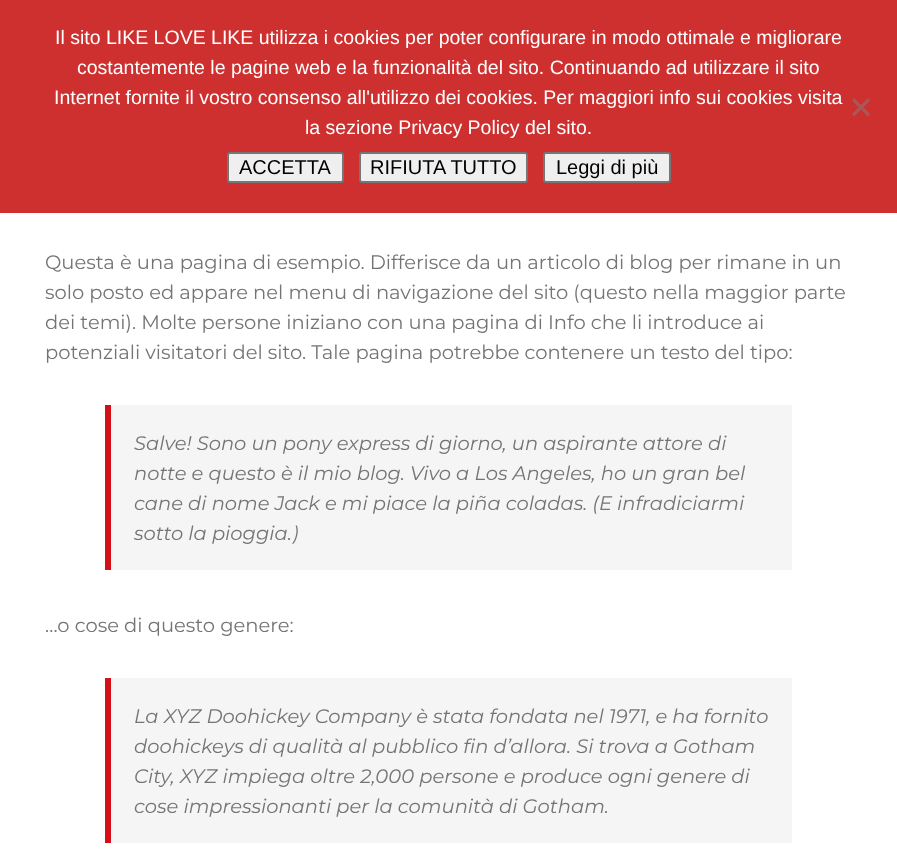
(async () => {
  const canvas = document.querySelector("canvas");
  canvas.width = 897;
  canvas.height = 867;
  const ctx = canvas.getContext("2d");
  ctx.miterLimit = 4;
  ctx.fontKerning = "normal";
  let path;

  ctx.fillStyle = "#ffffff";
  ctx.fillRect(0, 0, 897, 867);
  ctx.fillStyle = "#ce2f2f";
  ctx.fillRect(0, 0, 897, 213);
  ctx.fillStyle = "#a75858";
  path = new Path2D("M868 98L870 100.5L854 116.5L852 114Z");
  ctx.fill(path);
  path = new Path2D("M852 100.5L854 98L870 114L868 116.5Z");
  ctx.fill(path);
  ctx.fillStyle = "#efefef";
  ctx.beginPath();
  ctx.roundRect(228, 153, 115, 29, 2);
  ctx.fill();
  ctx.strokeStyle = "#767676";
  ctx.lineWidth = 2;
  ctx.stroke();
  ctx.beginPath();
  ctx.roundRect(360, 153, 167, 29, 2);
  ctx.fill();
  ctx.stroke();
  ctx.beginPath();
  ctx.roundRect(544, 153, 126, 29, 2);
  ctx.fill();
  ctx.stroke();
  for (const [x, y, w, h, color] of [
    [111, 405, 681, 165, "#f5f5f5"],
    [105, 405, 6, 165, "#d51019"],
    [111, 678, 681, 165, "#f5f5f5"],
    [105, 678, 6, 165, "#d51019"],
  ]) {
    ctx.fillStyle = color;
    ctx.fillRect(x, y, w, h);
  }
  ctx.font = "19.5px Liberation Sans";
  ctx.fillStyle = "#ffffff";
  for (const [text, x, y] of [
    ["Il sito LIKE LOVE LIKE utilizza i cookies per poter configurare in modo ottimale e migliorare", 55, 44],
    ["costantemente le pagine web e la funzionalità del sito. Continuando ad utilizzare il sito", 77, 74],
    ["Internet fornite il vostro consenso all'utilizzo dei cookies. Per maggiori info sui cookies visita", 54, 104],
    ["la sezione Privacy Policy del sito.", 305, 134],
  ]) {
    ctx.fillText(text, x, y);
  }
  ctx.font = "20px Liberation Sans";
  ctx.fillStyle = "#000000";
  for (const [text, x, y] of [
    ["ACCETTA", 239, 174],
    ["RIFIUTA TUTTO", 370, 174],
    ["Leggi di più", 556, 174],
  ]) {
    ctx.fillText(text, x, y);
  }
  ctx.font = "19.5px Montserrat";
  ctx.fillStyle = "#747474";
  for (const [text, x, y] of [
    ["Questa è una pagina di esempio. Differisce da un articolo di blog per rimane in un", 45, 269],
    ["solo posto ed appare nel menu di navigazione del sito (questo nella maggior parte", 45, 299],
    ["dei temi). Molte persone iniziano con una pagina di Info che li introduce ai", 45, 329],
    ["potenziali visitatori del sito. Tale pagina potrebbe contenere un testo del tipo:", 45, 359],
  ]) {
    ctx.fillText(text, x, y);
  }
  ctx.font = "italic 19.5px Montserrat";
  for (const [text, x, y] of [
    ["Salve! Sono un pony express di giorno, un aspirante attore di", 134, 450],
    ["notte e questo è il mio blog. Vivo a Los Angeles, ho un gran bel", 134, 480],
    ["cane di nome Jack e mi piace la piña coladas. (E infradiciarmi", 134, 510],
    ["sotto la pioggia.)", 134, 540],
  ]) {
    ctx.fillText(text, x, y);
  }
  ctx.font = "19.5px Montserrat";
  ctx.fillText("…o cose di questo genere:", 45, 632);
  ctx.font = "italic 19.5px Montserrat";
  for (const [text, x, y] of [
    ["La XYZ Doohickey Company è stata fondata nel 1971, e ha fornito", 134, 723],
    ["doohickeys di qualità al pubblico fin d’allora. Si trova a Gotham", 134, 753],
    ["City, XYZ impiega oltre 2,000 persone e produce ogni genere di", 134, 783],
    ["cose impressionanti per la comunità di Gotham.", 134, 813],
  ]) {
    ctx.fillText(text, x, y);
  }
})();
